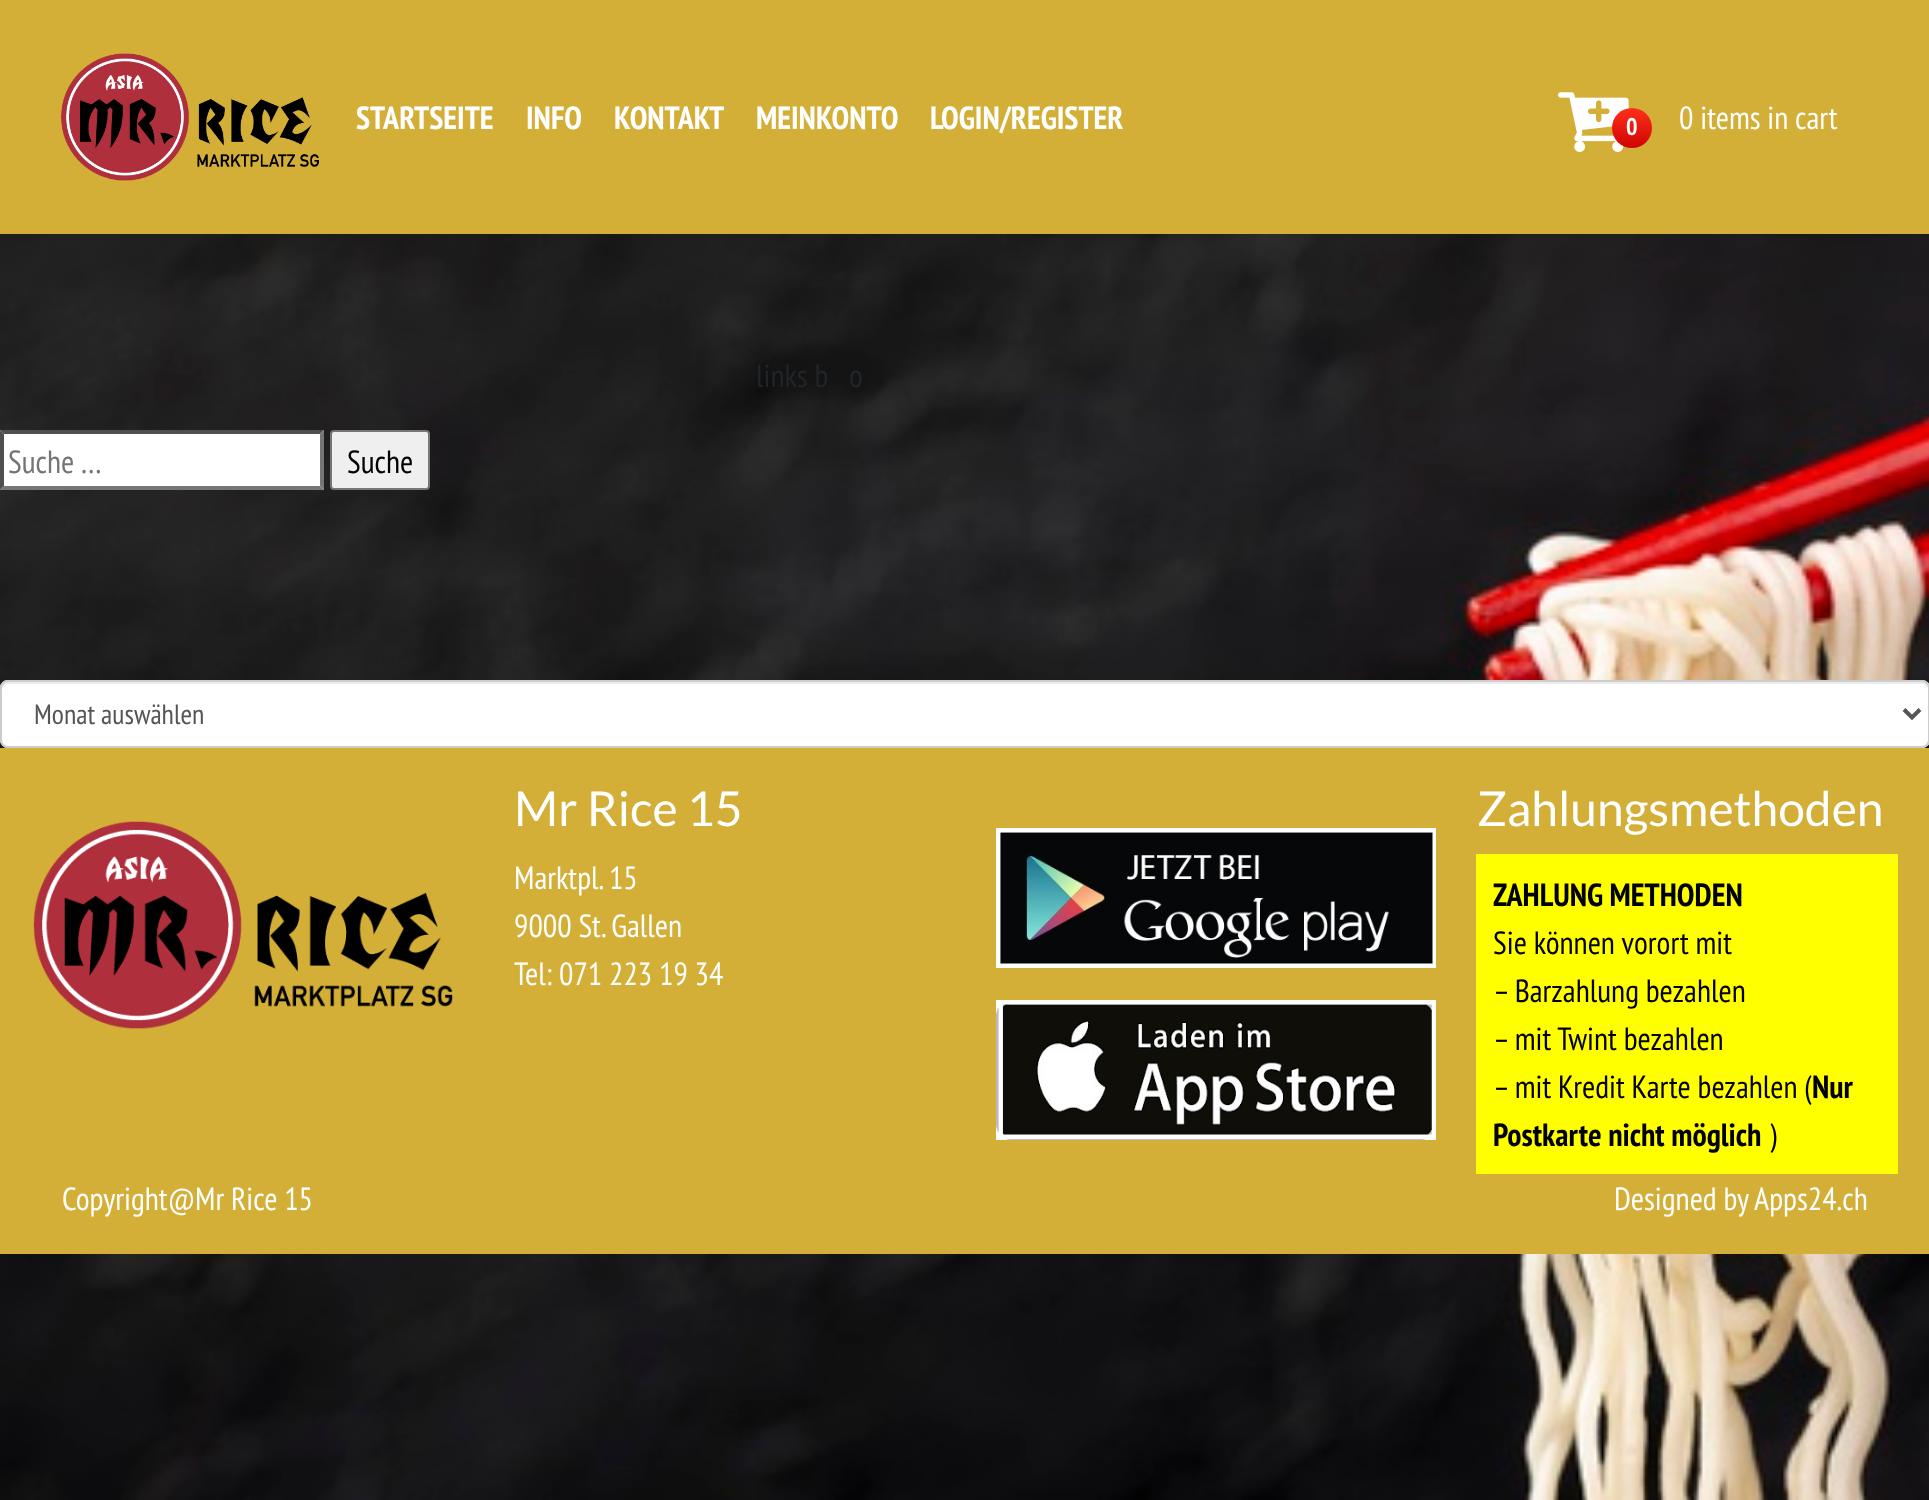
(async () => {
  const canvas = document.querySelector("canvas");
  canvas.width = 1929;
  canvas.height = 1500;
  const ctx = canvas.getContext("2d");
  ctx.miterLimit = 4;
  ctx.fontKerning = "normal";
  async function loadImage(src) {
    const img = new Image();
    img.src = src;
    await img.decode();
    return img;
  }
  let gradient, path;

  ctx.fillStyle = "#ffffff";
  ctx.fillRect(0, 0, 1929, 1500);
  ctx.drawImage(await loadImage("img/1.png"), 0, 234, 1929, 1266);
  ctx.fillStyle = "#d3af37";
  ctx.fillRect(0, 0, 1929, 234);
  ctx.drawImage(await loadImage("img/2.png"), 61, 53, 258, 128);
  ctx.drawImage(await loadImage("img/3.png"), 1558, 92, 71, 60);
  gradient = ctx.createLinearGradient(1632, 108, 1632, 148);
  gradient.addColorStop(0, "#ff3019");
  gradient.addColorStop(1, "#cf0404");
  ctx.fillStyle = gradient;
  ctx.beginPath();
  ctx.arc(1632, 128, 20, 0, Math.PI * 2);
  ctx.fill();
  ctx.fillStyle = "#ffffff";
  ctx.fillRect(0, 430, 324, 60);
  ctx.fillStyle = "#4f4f4f";
  path = new Path2D("M0 430H324L320 434H4Z");
  ctx.fill(path);
  ctx.fillStyle = "#767676";
  path = new Path2D("M324 430V490L320 486V434Z");
  ctx.fill(path);
  path = new Path2D("M324 490H0L4 486H320Z");
  ctx.fill(path);
  ctx.fillStyle = "#4f4f4f";
  path = new Path2D("M0 490V430L4 434V486Z");
  ctx.fill(path);
  ctx.fillStyle = "#efefef";
  ctx.beginPath();
  ctx.roundRect(331, 431, 98, 58, 3);
  ctx.fill();
  ctx.strokeStyle = "#767676";
  ctx.lineWidth = 2;
  ctx.stroke();
  ctx.fillStyle = "#ffffff";
  ctx.beginPath();
  ctx.roundRect(0, 680, 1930, 68, 8);
  ctx.fill();
  ctx.fillStyle = "#ececec";
  path = new Path2D("M8 684H1922C1925 684 1928 687 1928 690C1928 686 1927 682 1922 682H8C3 682 2 686 2 690C2 687 5 684 8 684Z");
  ctx.fill(path);
  ctx.beginPath();
  ctx.roundRect(1, 681, 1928, 66, 7);
  ctx.strokeStyle = "#cccccc";
  ctx.stroke();
  path = new Path2D("M1904 709.5L1912 717.5L1920 709.5");
  ctx.strokeStyle = "#555555";
  ctx.lineWidth = 4;
  ctx.stroke(path);
  ctx.fillStyle = "#d3af37";
  ctx.fillRect(0, 748, 1929, 506);
  ctx.drawImage(await loadImage("img/4.png"), 33, 821, 420, 208);
  ctx.drawImage(await loadImage("img/5.png"), 996, 828, 440, 140);
  ctx.drawImage(await loadImage("img/6.png"), 996, 1000, 440, 140);
  ctx.fillStyle = "#ffff00";
  ctx.fillRect(1476, 854, 422, 320);
  ctx.font = "bold 32px PT Sans Narrow";
  ctx.fillStyle = "#ffffff";
  for (const [text, x, y] of [
    ["STARTSEITE", 356, 129],
    ["INFO", 526, 129],
    ["KONTAKT", 614, 129],
    ["MEINKONTO", 756, 129],
    ["LOGIN/REGISTER", 930, 129],
  ]) {
    ctx.fillText(text, x, y);
  }
  ctx.font = "bold 24px PT Sans Narrow";
  ctx.fillText("0", 1626, 135);
  ctx.font = "32px PT Sans Narrow";
  ctx.fillText("0 items in cart", 1679, 129);
  ctx.fillStyle = "#212529";
  ctx.fillText("links b", 756, 387);
  ctx.fillText("o", 849, 387);
  ctx.fillStyle = "#757575";
  ctx.fillText("Suche …", 8, 473);
  ctx.fillStyle = "#000000";
  ctx.fillText("Suche", 347, 473);
  ctx.font = "28px PT Sans Narrow";
  ctx.fillStyle = "#555555";
  ctx.fillText("Monat auswählen", 34, 724);
  ctx.font = "48px Lato";
  ctx.fillStyle = "#ffffff";
  ctx.fillText("Mr Rice 15", 514, 826);
  ctx.font = "32px PT Sans Narrow";
  for (const [text, x, y] of [
    ["Marktpl. 15", 514, 889],
    ["9000 St. Gallen", 514, 937],
    ["Tel: 071 223 19 34", 514, 985],
  ]) {
    ctx.fillText(text, x, y);
  }
  ctx.font = "48px Lato";
  ctx.fillText("Zahlungsmethoden", 1477, 826);
  ctx.font = "bold 32px PT Sans Narrow";
  ctx.fillStyle = "#000000";
  ctx.fillText("ZAHLUNG METHODEN", 1493, 906);
  ctx.font = "32px PT Sans Narrow";
  for (const [text, x, y] of [
    ["Sie können vorort mit", 1493, 954],
    ["– Barzahlung bezahlen", 1493, 1002],
    ["– mit Twint bezahlen", 1493, 1050],
    ["– mit Kredit Karte bezahlen (", 1493, 1098],
  ]) {
    ctx.fillText(text, x, y);
  }
  ctx.font = "bold 32px PT Sans Narrow";
  ctx.fillText("Nur", 1812, 1098);
  ctx.fillText("Postkarte nicht möglich", 1493, 1146);
  ctx.font = "32px PT Sans Narrow";
  ctx.fillText(")", 1769, 1146);
  ctx.fillStyle = "#ffffff";
  for (const [text, x, y] of [
    ["Copyright@Mr Rice 15", 62, 1210],
    ["Designed by", 1614, 1210],
    ["Apps24.ch", 1754, 1210],
  ]) {
    ctx.fillText(text, x, y);
  }
})();
